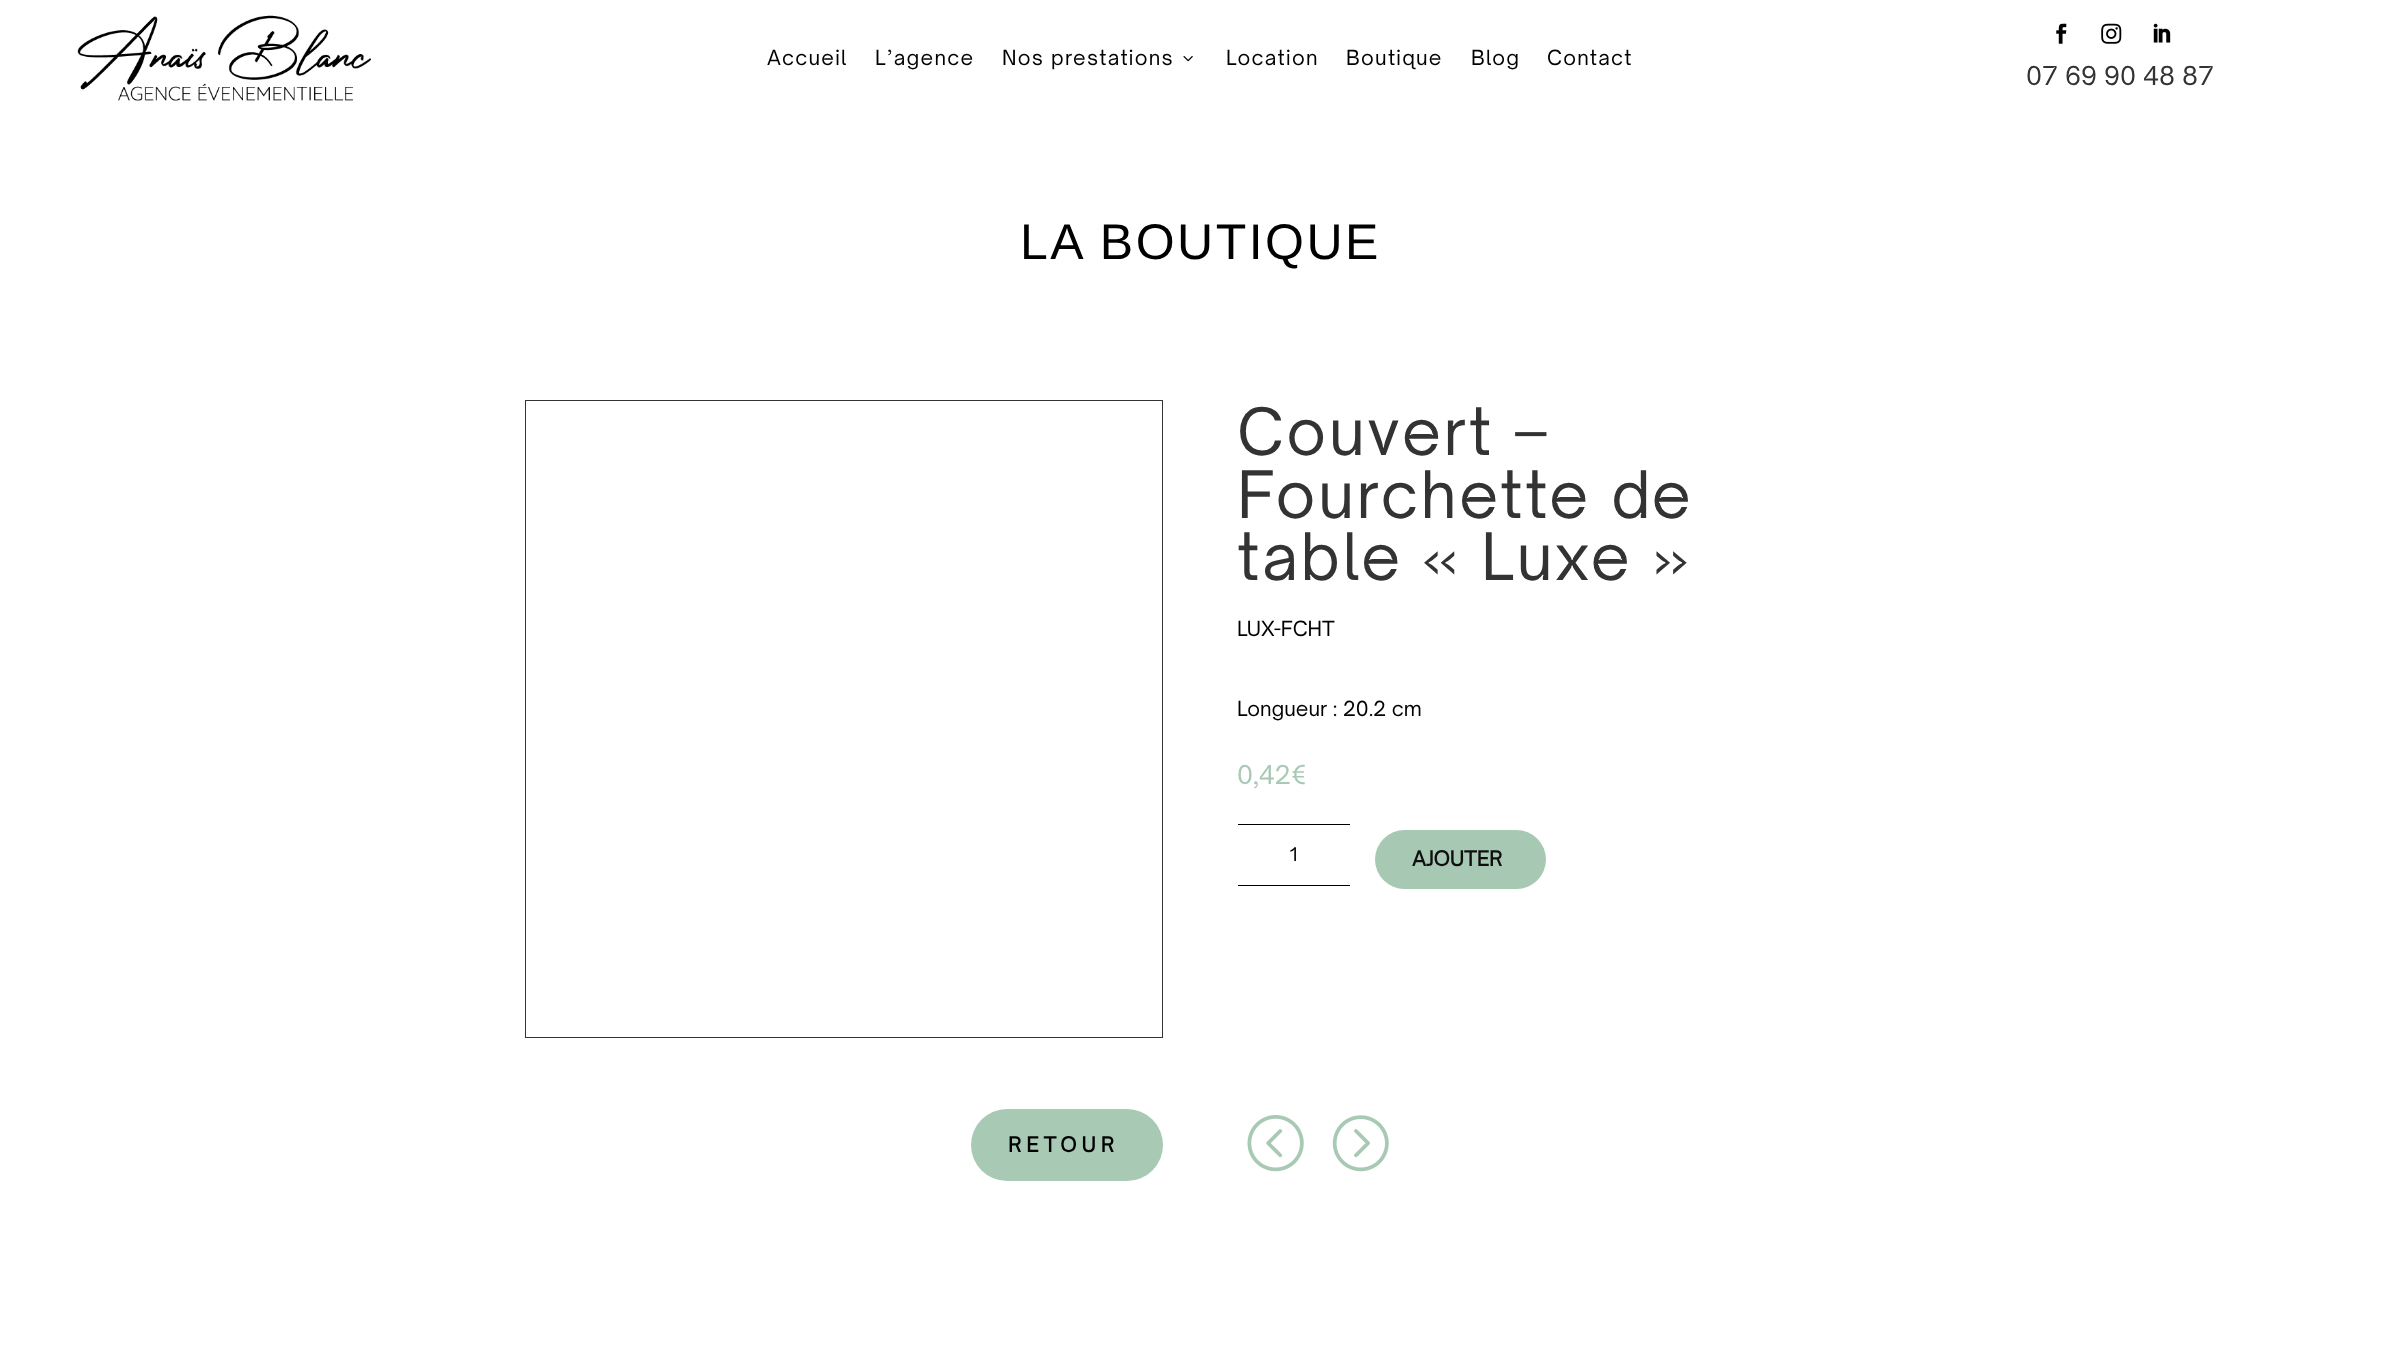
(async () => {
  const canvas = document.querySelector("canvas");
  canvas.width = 2399;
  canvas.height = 1345;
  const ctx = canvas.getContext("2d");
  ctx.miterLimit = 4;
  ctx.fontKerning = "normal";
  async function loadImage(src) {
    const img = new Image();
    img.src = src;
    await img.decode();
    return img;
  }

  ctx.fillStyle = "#ffffff";
  ctx.fillRect(0, 0, 2399, 1345);
  ctx.drawImage(await loadImage("img/1.png"), 77, 15, 294, 86);
  ctx.drawImage(await loadImage("img/2.png"), 1183, 56, 10, 6);
  ctx.drawImage(await loadImage("img/3.png"), 2056, 23, 11, 21);
  ctx.drawImage(await loadImage("img/4.png"), 2101, 23, 21, 21);
  ctx.drawImage(await loadImage("img/5.png"), 2153, 23, 18, 20);
  ctx.strokeStyle = "#333333";
  ctx.strokeRect(525.5, 400.5, 637, 637);
  ctx.fillStyle = "#000000";
  ctx.fillRect(1238, 824, 112, 1);
  ctx.fillRect(1238, 885, 112, 1);
  ctx.fillStyle = "#a7c9b3";
  ctx.beginPath();
  ctx.roundRect(1375, 830, 171, 59, 29.5);
  ctx.fill();
  ctx.fillStyle = "#a8c9b4";
  ctx.beginPath();
  ctx.roundRect(971, 1109, 192, 72, 36);
  ctx.fill();
  ctx.drawImage(await loadImage("img/6.png"), 1247, 1115, 57, 57);
  ctx.drawImage(await loadImage("img/7.png"), 1332, 1115, 57, 57);
  ctx.letterSpacing = "1.25px";
  ctx.font = "20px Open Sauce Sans";
  ctx.fillStyle = "#000000";
  for (const [text, x, y] of [
    ["Accueil", 767, 65],
    ["L’agence", 875, 65],
    ["Nos prestations", 1002, 65],
    ["Location", 1226, 65],
    ["Boutique", 1346, 65],
    ["Blog", 1471, 65],
    ["Contact", 1547, 65],
  ]) {
    ctx.fillText(text, x, y);
  }
  ctx.letterSpacing = "0px";
  ctx.font = "25px Open Sauce Sans";
  ctx.fillStyle = "#333333";
  ctx.fillText("07 69 90 48 87", 2026, 85);
  ctx.letterSpacing = "2.5px";
  ctx.font = "50px Liberation Sans";
  ctx.fillStyle = "#000000";
  ctx.fillText("LA BOUTIQUE", 1020, 259);
  ctx.font = "62.5px Open Sauce Sans";
  ctx.fillStyle = "#333333";
  for (const [text, x, y] of [
    ["Couvert –", 1237, 455],
    ["Fourchette de", 1237, 518],
    ["table « Luxe »", 1237, 580],
  ]) {
    ctx.fillText(text, x, y);
  }
  ctx.letterSpacing = "0px";
  ctx.font = "20px Open Sauce Sans";
  ctx.fillStyle = "#000000";
  ctx.fillText("LUX-FCHT", 1237, 636);
  ctx.fillText("Longueur : 20.2 cm", 1237, 716);
  ctx.font = "25px Open Sauce Sans";
  ctx.fillStyle = "#a8c9b4";
  ctx.fillText("0,42€", 1237, 784);
  ctx.font = "18px Open Sauce Sans";
  ctx.fillStyle = "#000000";
  ctx.fillText("1", 1288, 861);
  ctx.font = "bold 20px Open Sauce Sans";
  ctx.fillStyle = "#0f0f0f";
  ctx.fillText("AJOUTER", 1412, 866);
  ctx.letterSpacing = "5px";
  ctx.fillStyle = "#000000";
  ctx.fillText("RETOUR", 1008, 1152);
})();
